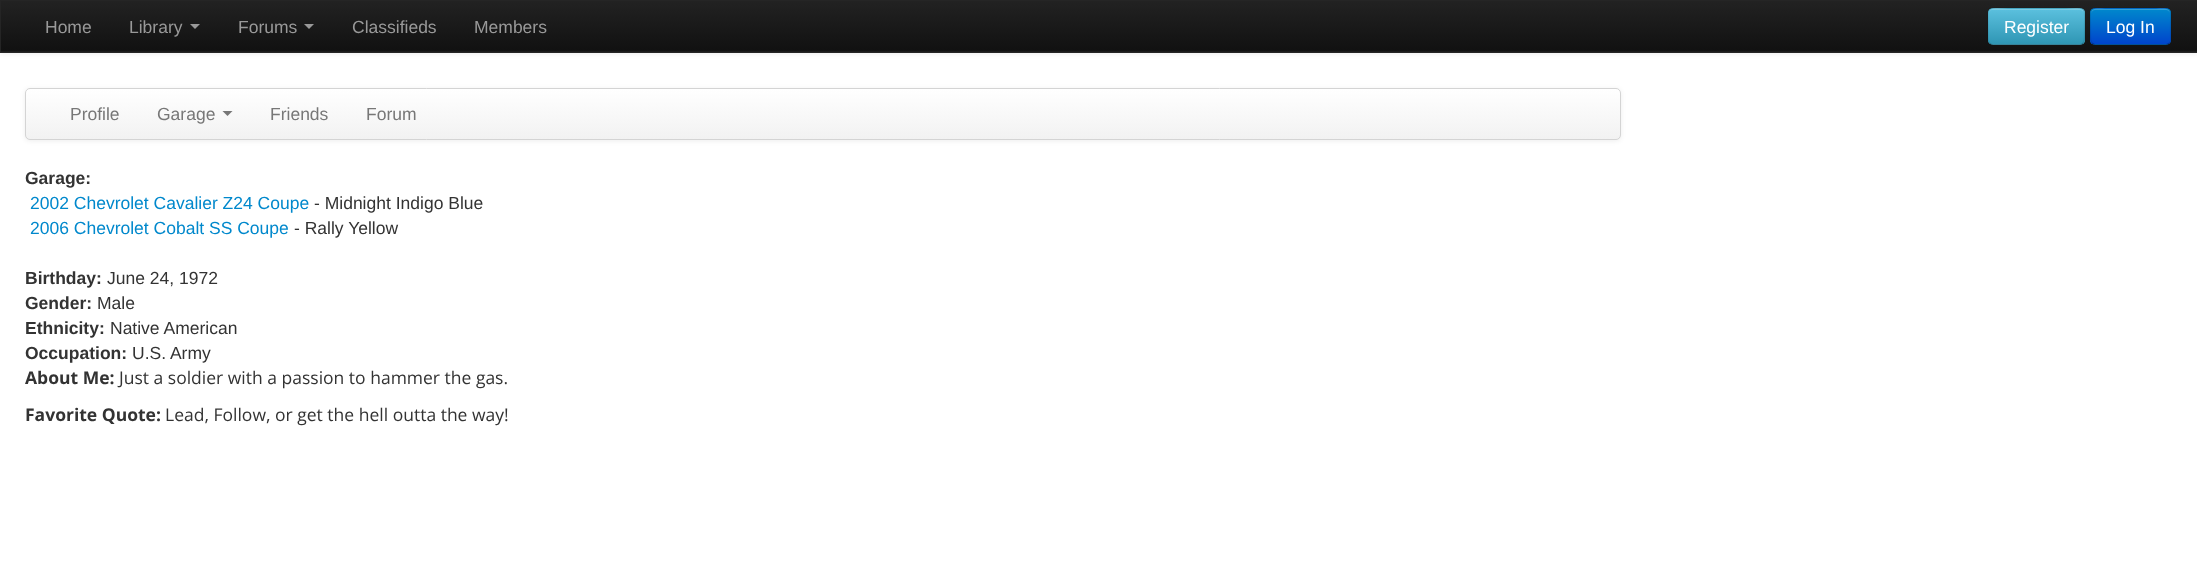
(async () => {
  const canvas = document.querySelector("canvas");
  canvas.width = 2197;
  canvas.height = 586;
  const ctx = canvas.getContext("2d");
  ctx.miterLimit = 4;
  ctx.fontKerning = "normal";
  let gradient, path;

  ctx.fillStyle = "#ffffff";
  ctx.fillRect(0, 0, 2197, 586);
  ctx.fillStyle = "rgba(0, 0, 0, 0.07)";
  ctx.filter = "blur(2.5px)";
  ctx.beginPath();
  ctx.rect(0, 1, 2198, 53);
  ctx.fill();
  ctx.filter = "none";
  ctx.fillStyle = "#1b1b1b";
  ctx.fillRect(1, 51, 2196, 1);
  gradient = ctx.createLinearGradient(1099, 1.2, 1099, 51);
  gradient.addColorStop(0, "#222222");
  gradient.addColorStop(1, "#111111");
  ctx.fillStyle = gradient;
  ctx.fillRect(1, 1, 2196, 50);
  ctx.strokeStyle = "#252525";
  ctx.strokeRect(0.5, 0.5, 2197, 52);
  ctx.fillStyle = "#999999";
  path = new Path2D("M190 24H200L195 29Z");
  ctx.fill(path);
  path = new Path2D("M304 24H314L309 29Z");
  ctx.fill(path);
  ctx.fillStyle = "#49afcd";
  ctx.beginPath();
  ctx.roundRect(1988, 8, 97, 37, 5);
  ctx.fill();
  ctx.save();
  ctx.beginPath();
  ctx.roundRect(1988, 8, 97, 37, 5);
  ctx.clip();
  gradient = ctx.createLinearGradient(2036, 9, 2036, 44);
  gradient.addColorStop(0, "#5bc0de");
  gradient.addColorStop(1, "#2f96b4");
  ctx.fillStyle = gradient;
  ctx.fillRect(1988, 9, 97, 35);
  ctx.restore();
  ctx.fillStyle = "rgba(255, 255, 255, 0.2)";
  path = new Path2D("M1992 10H2080C2082 10 2084 12 2084 14C2084 5 2070 9 2066 9H2008C2003 9 1989 5 1989 14C1989 12 1990 10 1992 10Z");
  ctx.fill(path);
  path = new Path2D("M2083 43C2082.5 44 2081 44.5 2080 44.5H1992.5C1991.5 44.5 1990 44 1989.5 43");
  ctx.strokeStyle = "rgba(0, 0, 0, 0.25)";
  ctx.lineWidth = 1.2;
  ctx.stroke(path);
  path = new Path2D("M1989.5 43C1987.5 41 1988 38 1988 35.5V26C1988 5.5 1985 8 2007 8H2065.5C2087.5 8 2084.5 5.5 2084.5 26V35.5C2084.5 38 2085 41 2083 43");
  ctx.strokeStyle = "rgba(0, 0, 0, 0.1)";
  ctx.stroke(path);
  ctx.fillStyle = "#006dcc";
  ctx.beginPath();
  ctx.roundRect(2090, 8, 81, 37, 5);
  ctx.fill();
  ctx.save();
  ctx.beginPath();
  ctx.roundRect(2090, 8, 81, 37, 5);
  ctx.clip();
  gradient = ctx.createLinearGradient(2131, 9, 2131, 44);
  gradient.addColorStop(0, "#0088cc");
  gradient.addColorStop(1, "#0044cc");
  ctx.fillStyle = gradient;
  ctx.fillRect(2090, 9, 81, 35);
  ctx.restore();
  ctx.fillStyle = "rgba(255, 255, 255, 0.2)";
  path = new Path2D("M2095 10H2166C2168 10 2170 12 2170 14C2170 6 2159 9 2154 9H2107C2102 9 2091 6 2091 14C2091 12 2093 10 2095 10Z");
  ctx.fill(path);
  path = new Path2D("M2169.5 43L2166.5 44.5H2094.5L2092 43");
  ctx.strokeStyle = "rgba(0, 0, 0, 0.25)";
  ctx.stroke(path);
  path = new Path2D("M2092 43C2090 41 2090.5 38 2090.5 35.5V26C2090.5 6.5 2087.5 8 2107 8H2154.5C2174 8 2170.5 6.5 2170.5 26V35.5C2170.5 38 2171.5 41 2169.5 43");
  ctx.strokeStyle = "rgba(0, 0, 0, 0.1)";
  ctx.stroke(path);
  ctx.fillStyle = "rgba(0, 0, 0, 0.07)";
  ctx.filter = "blur(2.5px)";
  ctx.beginPath();
  ctx.roundRect(25, 89, 1596, 52, 5);
  ctx.fill();
  ctx.filter = "none";
  ctx.save();
  ctx.beginPath();
  ctx.roundRect(25, 88, 1596, 52, 5);
  ctx.clip();
  gradient = ctx.createLinearGradient(823, 89, 823, 139);
  gradient.addColorStop(0, "#ffffff");
  gradient.addColorStop(1, "#f2f2f2");
  ctx.fillStyle = gradient;
  ctx.fillRect(25, 89, 1596, 50);
  ctx.restore();
  ctx.beginPath();
  ctx.roundRect(25.5, 88.5, 1595, 51, 4.5);
  ctx.strokeStyle = "#d4d4d4";
  ctx.lineWidth = 1;
  ctx.stroke();
  ctx.fillStyle = "#777777";
  path = new Path2D("M222.5 111H232.5L227.5 116Z");
  ctx.fill(path);
  ctx.font = "17.5px Liberation Sans";
  ctx.fillStyle = "#999999";
  for (const [text, x, y] of [
    ["Home", 45, 33],
    ["Library", 129, 33],
    ["Forums", 238, 33],
    ["Classifieds", 352, 33],
    ["Members", 474, 33],
  ]) {
    ctx.fillText(text, x, y);
  }
  ctx.fillStyle = "#ffffff";
  ctx.fillText("Register", 2004, 33);
  ctx.fillText("Log In", 2106, 33);
  ctx.fillStyle = "#777777";
  for (const [text, x, y] of [
    ["Profile", 70, 120],
    ["Garage", 157, 120],
    ["Friends", 270, 120],
    ["Forum", 366, 120],
  ]) {
    ctx.fillText(text, x, y);
  }
  ctx.font = "bold 17.5px Liberation Sans";
  ctx.fillStyle = "#333333";
  ctx.fillText("Garage:", 25, 184);
  ctx.font = "17.5px Liberation Sans";
  ctx.fillStyle = "#0088cc";
  ctx.fillText("2002 Chevrolet Cavalier Z24 Coupe", 30, 209);
  ctx.fillStyle = "#333333";
  ctx.fillText("- Midnight Indigo Blue", 314, 209);
  ctx.fillStyle = "#0088cc";
  ctx.fillText("2006 Chevrolet Cobalt SS Coupe", 30, 234);
  ctx.fillStyle = "#333333";
  ctx.fillText("- Rally Yellow", 294, 234);
  ctx.font = "bold 17.5px Liberation Sans";
  ctx.fillText("Birthday:", 25, 284);
  ctx.font = "17.5px Liberation Sans";
  ctx.fillText("June 24, 1972", 107, 284);
  ctx.font = "bold 17.5px Liberation Sans";
  ctx.fillText("Gender:", 25, 309);
  ctx.font = "17.5px Liberation Sans";
  ctx.fillText("Male", 97, 309);
  ctx.font = "bold 17.5px Liberation Sans";
  ctx.fillText("Ethnicity:", 25, 334);
  ctx.font = "17.5px Liberation Sans";
  ctx.fillText("Native American", 110, 334);
  ctx.font = "bold 17.5px Liberation Sans";
  ctx.fillText("Occupation:", 25, 359);
  ctx.font = "17.5px Liberation Sans";
  ctx.fillText("U.S. Army", 132, 359);
  ctx.font = "bold 17.5px Open Sans";
  ctx.fillText("About Me:", 25, 384);
  ctx.font = "17.5px Open Sans";
  ctx.fillText("Just a soldier with a passion to hammer the gas.", 119, 384);
  ctx.font = "bold 17.5px Open Sans";
  ctx.fillText("Favorite Quote:", 25, 421);
  ctx.font = "17.5px Open Sans";
  ctx.fillText("Lead, Follow, or get the hell outta the way!", 165, 421);
})();
